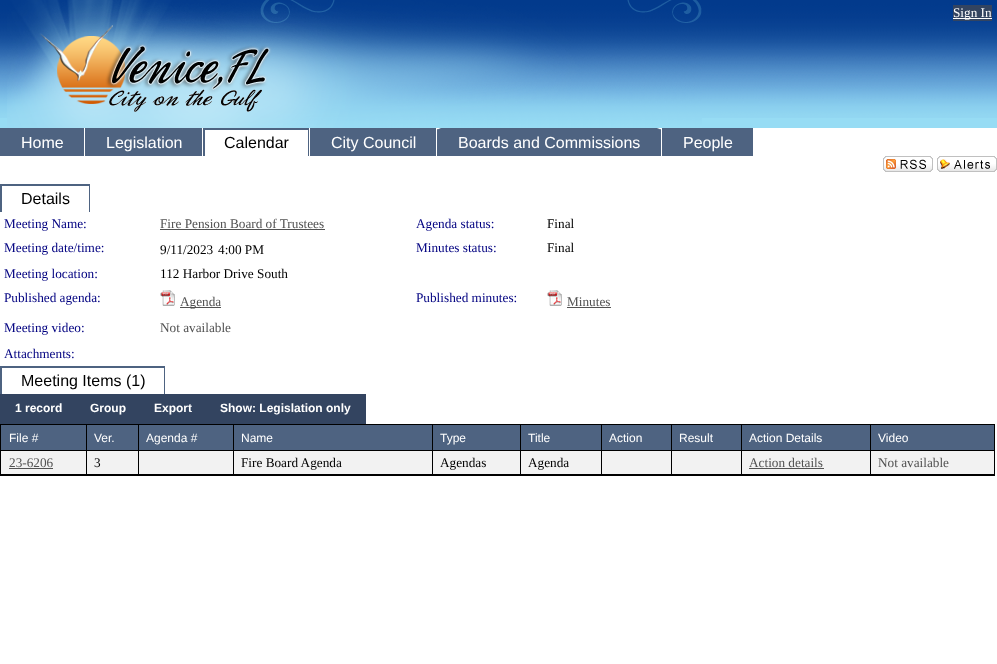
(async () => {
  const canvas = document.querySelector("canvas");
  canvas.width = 997;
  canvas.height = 664;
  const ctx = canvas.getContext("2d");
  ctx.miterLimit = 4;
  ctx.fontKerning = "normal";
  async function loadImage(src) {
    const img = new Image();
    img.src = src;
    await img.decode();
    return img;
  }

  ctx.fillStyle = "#ffffff";
  ctx.fillRect(0, 0, 997, 664);
  ctx.fillStyle = "#97dcf4";
  ctx.fillRect(0, 118, 997, 10);
  ctx.drawImage(await loadImage("img/1.png"), 0, 0, 997, 118);
  ctx.drawImage(await loadImage("img/2.png"), 7, 0, 695, 128);
  for (const [x, y, w, h, color] of [
    [953, 5, 39, 16, "#334460"],
    [953, 18, 39, 1, "#ffffff"],
    [0, 128, 84, 28, "#4e6381"],
    [85, 128, 117, 28, "#4e6381"],
    [203, 128, 106, 28, "#4e6381"],
    [205, 130, 103, 26, "#ffffff"],
    [310, 128, 126, 28, "#4e6381"],
  ]) {
    ctx.fillStyle = color;
    ctx.fillRect(x, y, w, h);
  }
  ctx.drawImage(await loadImage("img/3.png"), 437, 128, 224, 28);
  ctx.fillRect(662, 128, 91, 28);
  ctx.drawImage(await loadImage("img/4.png"), 883, 156, 50, 16);
  ctx.drawImage(await loadImage("img/5.png"), 937, 156, 60, 16);
  for (const [x, y, w, h, color] of [
    [0, 184, 90, 28, "#4e6381"],
    [2, 186, 87, 26, "#ffffff"],
    [160, 229, 165, 1, "#525252"],
  ]) {
    ctx.fillStyle = color;
    ctx.fillRect(x, y, w, h);
  }
  ctx.drawImage(await loadImage("img/6.png"), 160, 290, 15, 16);
  ctx.fillRect(180, 307, 41, 1);
  ctx.drawImage(await loadImage("img/6.png"), 547, 290, 15, 16);
  for (const [x, y, w, h, color] of [
    [567, 307, 44, 1, "#525252"],
    [0, 366, 165, 28, "#4e6381"],
    [2, 368, 162, 26, "#ffffff"],
    [0, 394, 366, 30, "#334460"],
  ]) {
    ctx.fillStyle = color;
    ctx.fillRect(x, y, w, h);
  }
  ctx.strokeStyle = "#000000";
  ctx.strokeRect(0.5, 424.5, 994, 51);
  for (const [x, y, w, h, color] of [
    [1, 425, 85, 25, "#4e6381"],
    [1, 450, 993, 1, "#000000"],
    [87, 425, 51, 25, "#4e6381"],
    [86, 425, 1, 26, "#000000"],
    [139, 425, 94, 25, "#4e6381"],
    [138, 425, 1, 26, "#000000"],
    [234, 425, 198, 25, "#4e6381"],
    [233, 425, 1, 26, "#000000"],
    [433, 425, 87, 25, "#4e6381"],
    [432, 425, 1, 26, "#000000"],
    [521, 425, 80, 25, "#4e6381"],
    [520, 425, 1, 26, "#000000"],
    [602, 425, 69, 25, "#4e6381"],
    [601, 425, 1, 26, "#000000"],
    [672, 425, 69, 25, "#4e6381"],
    [671, 425, 1, 26, "#000000"],
    [742, 425, 128, 25, "#4e6381"],
    [741, 425, 1, 26, "#000000"],
    [871, 425, 123, 25, "#4e6381"],
    [870, 425, 1, 26, "#000000"],
    [1, 451, 85, 23, "#f2f2f2"],
    [1, 474, 993, 1, "#000000"],
    [9, 468, 44, 1, "#525252"],
    [87, 451, 51, 23, "#f2f2f2"],
    [86, 451, 1, 24, "#000000"],
    [139, 451, 94, 23, "#f2f2f2"],
    [138, 451, 1, 24, "#000000"],
    [234, 451, 198, 23, "#f2f2f2"],
    [233, 451, 1, 24, "#000000"],
    [433, 451, 87, 23, "#f2f2f2"],
    [432, 451, 1, 24, "#000000"],
    [521, 451, 80, 23, "#f2f2f2"],
    [520, 451, 1, 24, "#000000"],
    [602, 451, 69, 23, "#f2f2f2"],
    [601, 451, 1, 24, "#000000"],
    [672, 451, 69, 23, "#f2f2f2"],
    [671, 451, 1, 24, "#000000"],
    [742, 451, 128, 23, "#f2f2f2"],
    [741, 451, 1, 24, "#000000"],
    [749, 468, 75, 1, "#525252"],
    [871, 451, 123, 23, "#f2f2f2"],
    [870, 451, 1, 24, "#000000"],
  ]) {
    ctx.fillStyle = color;
    ctx.fillRect(x, y, w, h);
  }
  ctx.font = "13.25px Liberation Serif";
  ctx.fillStyle = "#ffffff";
  ctx.fillText("Sign In", 953, 17);
  ctx.font = "16px Liberation Sans";
  ctx.fillText("Home", 21, 148);
  ctx.fillText("Legislation", 106, 148);
  ctx.fillStyle = "#000000";
  ctx.fillText("Calendar", 224, 148);
  ctx.fillStyle = "#ffffff";
  for (const [text, x, y] of [
    ["City Council", 331, 148],
    ["Boards and Commissions", 458, 148],
    ["People", 683, 148],
  ]) {
    ctx.fillText(text, x, y);
  }
  ctx.fillStyle = "#000000";
  ctx.fillText("Details", 21, 204);
  ctx.font = "13.25px Liberation Serif";
  ctx.fillStyle = "#000080";
  ctx.fillText("Meeting Name:", 4, 228);
  ctx.fillStyle = "#525252";
  ctx.fillText("Fire Pension Board of Trustees", 160, 228);
  ctx.fillStyle = "#000080";
  ctx.fillText("Agenda status:", 416, 228);
  ctx.fillStyle = "#000000";
  ctx.fillText("Final", 547, 228);
  ctx.fillStyle = "#000080";
  ctx.fillText("Meeting date/time:", 4, 252);
  ctx.fillStyle = "#000000";
  ctx.fillText("9/11/2023", 160, 254);
  ctx.fillText("4:00 PM", 218, 254);
  ctx.fillStyle = "#000080";
  ctx.fillText("Minutes status:", 416, 252);
  ctx.fillStyle = "#000000";
  ctx.fillText("Final", 547, 252);
  ctx.fillStyle = "#000080";
  ctx.fillText("Meeting location:", 4, 278);
  ctx.fillStyle = "#000000";
  ctx.fillText("112 Harbor Drive South", 160, 278);
  ctx.fillStyle = "#000080";
  ctx.fillText("Published agenda:", 4, 302);
  ctx.fillStyle = "#525252";
  ctx.fillText("Agenda", 180, 306);
  ctx.fillStyle = "#000080";
  ctx.fillText("Published minutes:", 416, 302);
  ctx.fillStyle = "#525252";
  ctx.fillText("Minutes", 567, 306);
  ctx.fillStyle = "#000080";
  ctx.fillText("Meeting video:", 4, 332);
  ctx.fillStyle = "#525252";
  ctx.fillText("Not available", 160, 332);
  ctx.fillStyle = "#000080";
  ctx.fillText("Attachments:", 4, 358);
  ctx.font = "16px Liberation Sans";
  ctx.fillStyle = "#000000";
  ctx.fillText("Meeting Items (1)", 21, 386);
  ctx.font = "bold 12px Liberation Sans";
  ctx.fillStyle = "#ffffff";
  for (const [text, x, y] of [
    ["1 record", 15, 412],
    ["Group", 90, 412],
    ["Export", 154, 412],
    ["Show: Legislation only", 220, 412],
  ]) {
    ctx.fillText(text, x, y);
  }
  ctx.font = "12px Liberation Sans";
  for (const [text, x, y] of [
    ["File #", 9, 442],
    ["Ver.", 94, 442],
    ["Agenda #", 146, 442],
    ["Name", 241, 442],
    ["Type", 440, 442],
    ["Title", 528, 442],
    ["Action", 609, 442],
    ["Result", 679, 442],
    ["Action Details", 749, 442],
    ["Video", 878, 442],
  ]) {
    ctx.fillText(text, x, y);
  }
  ctx.font = "13.25px Liberation Serif";
  ctx.fillStyle = "#525252";
  ctx.fillText("23-6206", 9, 467);
  ctx.fillStyle = "#000000";
  for (const [text, x, y] of [
    ["3", 94, 467],
    ["Fire Board Agenda", 241, 467],
    ["Agendas", 440, 467],
    ["Agenda", 528, 467],
  ]) {
    ctx.fillText(text, x, y);
  }
  ctx.fillStyle = "#525252";
  ctx.fillText("Action details", 749, 467);
  ctx.fillText("Not available", 878, 467);
})();
